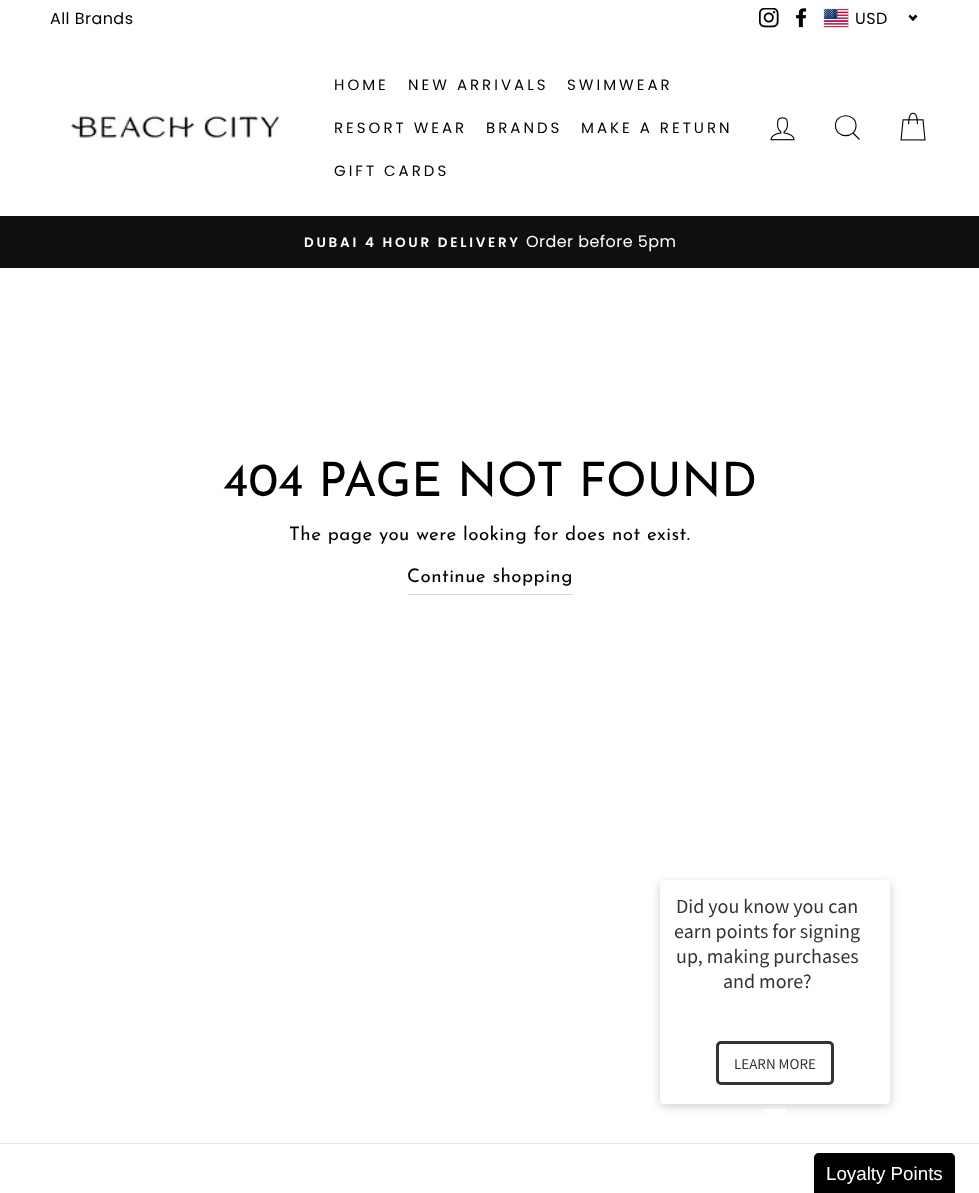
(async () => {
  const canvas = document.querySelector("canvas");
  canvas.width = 979;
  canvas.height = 1193;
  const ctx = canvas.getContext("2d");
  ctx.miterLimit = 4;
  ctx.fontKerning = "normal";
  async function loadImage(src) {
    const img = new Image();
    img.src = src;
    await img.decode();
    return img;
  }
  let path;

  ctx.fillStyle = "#ffffff";
  ctx.fillRect(0, 0, 979, 1193);
  ctx.drawImage(await loadImage("img/1.png"), 759, 8, 20, 20);
  ctx.drawImage(await loadImage("img/2.png"), 796, 8, 11, 20);
  ctx.drawImage(await loadImage("img/3.png"), 823, 8, 26, 20);
  ctx.fillStyle = "#000000";
  path = new Path2D("M915.5 14.5L917.5 16.5L913 21L911 19Z");
  ctx.fill(path);
  path = new Path2D("M910 14.5L914.5 19L913 21L908.5 16.5Z");
  ctx.fill(path);
  ctx.drawImage(await loadImage("img/4.png"), 71, 113, 209, 25);
  ctx.drawImage(await loadImage("img/5.png"), 770, 117, 25, 24);
  path = new Path2D("M856 125.5C856 139 835.5 139 835.5 125.5C835.5 112.5 856 112.5 856 125.5ZM859.5 139.5L853 133");
  ctx.strokeStyle = "#000000";
  ctx.lineWidth = 1.1;
  ctx.stroke(path);
  ctx.drawImage(await loadImage("img/6.png"), 900, 112, 26, 29);
  for (const [x, y, w, h, color] of [
    [0, 216, 979, 52, "#0f0f0f"],
    [408, 594, 165, 1, "#d9d9d9"],
    [0, 1143, 979, 1, "#e8e8e1"],
  ]) {
    ctx.fillStyle = color;
    ctx.fillRect(x, y, w, h);
  }
  ctx.fillStyle = "rgba(0, 0, 0, 0.2)";
  ctx.filter = "blur(5px)";
  ctx.beginPath();
  ctx.roundRect(660, 883, 230, 223, 4);
  ctx.fill();
  ctx.filter = "none";
  ctx.fillStyle = "#ffffff";
  ctx.beginPath();
  ctx.roundRect(660, 880, 230, 224, 4);
  ctx.fill();
  ctx.beginPath();
  ctx.roundRect(717.5, 1042.5, 115, 41, 3.5);
  ctx.strokeStyle = "#333333";
  ctx.lineWidth = 3;
  ctx.stroke();
  path = new Path2D("M762.5 1109H787.5L775 1121Z");
  ctx.fill(path);
  ctx.fillStyle = "#000000";
  path = new Path2D("M819 1153H950C953 1153 955 1155 955 1158V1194H814V1158C814 1155 816 1153 819 1153Z");
  ctx.fill(path);
  ctx.letterSpacing = "0.45px";
  ctx.font = "16px Poppins";
  ctx.fillText("All Brands", 50, 24);
  ctx.fillText("USD", 855, 24);
  ctx.letterSpacing = "3px";
  ctx.font = "15px Poppins";
  for (const [text, x, y] of [
    ["HOME", 334, 90],
    ["NEW ARRIVALS", 408, 90],
    ["SWIMWEAR", 567, 90],
    ["RESORT WEAR", 334, 133],
    ["BRANDS", 486, 133],
    ["MAKE A RETURN", 581, 133],
    ["GIFT CARDS", 334, 176],
  ]) {
    ctx.fillText(text, x, y);
  }
  ctx.letterSpacing = "2.75px";
  ctx.font = "600 13.5px Poppins";
  ctx.fillStyle = "#ffffff";
  ctx.fillText("DUBAI 4 HOUR DELIVERY", 304, 247);
  ctx.letterSpacing = "0.45px";
  ctx.font = "16px Poppins";
  ctx.fillText("Order before 5pm", 526, 247);
  ctx.letterSpacing = "0px";
  ctx.font = "47.5px Josefin Sans";
  ctx.fillStyle = "#000000";
  ctx.fillText("404 PAGE NOT FOUND", 223, 496);
  ctx.letterSpacing = "0.45px";
  ctx.font = "18.75px Josefin Sans";
  ctx.fillText("The page you were looking for does not exist.", 289, 540);
  ctx.fillText("Continue shopping", 407, 582);
  ctx.letterSpacing = "0px";
  ctx.font = "20px Source Sans Pro";
  ctx.fillStyle = "#333333";
  for (const [text, x, y] of [
    ["Did you know you can", 676, 913],
    ["earn points for signing", 674, 938],
    ["up, making purchases", 676, 963],
    ["and more?", 723, 988],
  ]) {
    ctx.fillText(text, x, y);
  }
  ctx.font = "15px Source Sans Pro";
  ctx.fillText("LEARN MORE", 734, 1069);
  ctx.font = "18.75px Liberation Sans";
  ctx.fillStyle = "#ffffff";
  ctx.fillText("Loyalty Points", 826, 1180);
})();
